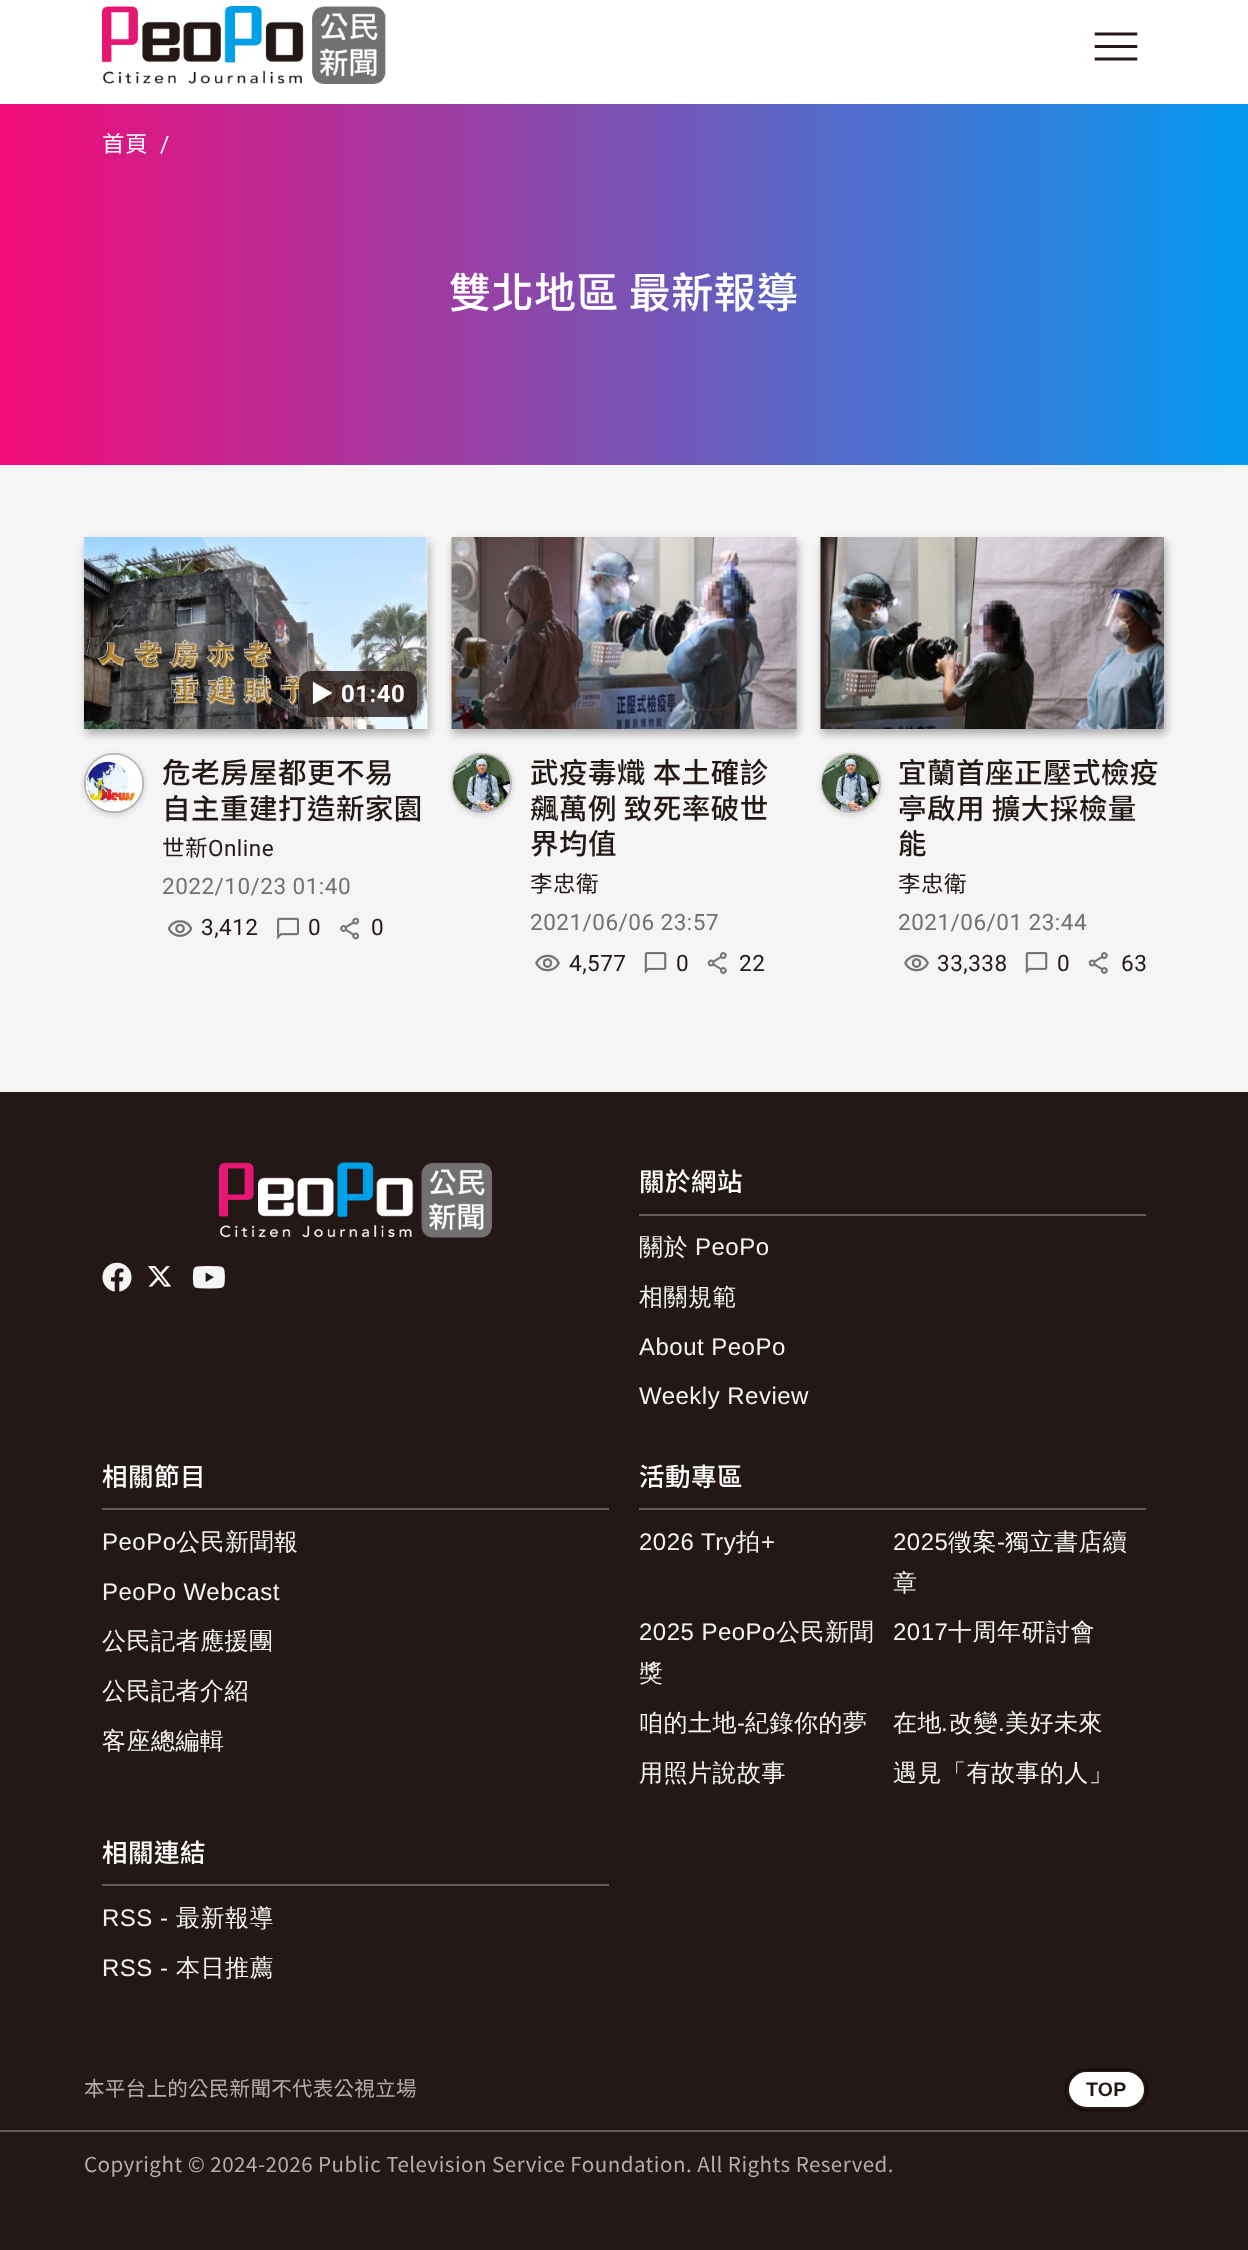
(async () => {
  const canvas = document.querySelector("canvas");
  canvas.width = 1248;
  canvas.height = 2250;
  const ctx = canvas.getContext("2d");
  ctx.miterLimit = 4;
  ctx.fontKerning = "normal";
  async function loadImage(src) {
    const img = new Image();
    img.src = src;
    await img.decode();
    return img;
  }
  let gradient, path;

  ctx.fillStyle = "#f5f5f5";
  ctx.fillRect(0, 0, 1248, 2250);
  ctx.fillStyle = "#ffffff";
  ctx.fillRect(0, 0, 1248, 104);
  ctx.drawImage(await loadImage("img/1.png"), 102, 6, 284, 78);
  ctx.drawImage(await loadImage("img/2.png"), 1094, 32, 44, 29);
  gradient = ctx.createLinearGradient(1248, 284, 0, 284);
  gradient.addColorStop(0, "#0599f0");
  gradient.addColorStop(1, "#f20a78");
  ctx.fillStyle = gradient;
  ctx.fillRect(0, 104, 1248, 361);
  ctx.fillStyle = "rgba(0, 0, 0, 0.3)";
  ctx.filter = "blur(4px)";
  ctx.beginPath();
  ctx.rect(86, 542, 343, 192);
  ctx.fill();
  ctx.filter = "none";
  ctx.drawImage(await loadImage("img/3.png"), 84, 537, 344, 192);
  ctx.fillStyle = "rgba(35, 24, 21, 0.8)";
  ctx.beginPath();
  ctx.roundRect(299, 671, 118, 46, 12);
  ctx.fill();
  ctx.fillStyle = "rgba(12, 12, 13, 0.1)";
  ctx.filter = "blur(3px)";
  ctx.beginPath();
  ctx.roundRect(84, 755, 60, 60, 30);
  ctx.fill();
  ctx.filter = "none";
  ctx.fillStyle = "rgba(12, 12, 13, 0.05)";
  ctx.filter = "blur(3px)";
  ctx.beginPath();
  ctx.roundRect(84, 755, 60, 60, 30);
  ctx.fill();
  ctx.filter = "none";
  ctx.beginPath();
  ctx.arc(114, 783, 29, 0, Math.PI * 2);
  ctx.strokeStyle = "rgba(35, 24, 21, 0.25)";
  ctx.lineWidth = 2;
  ctx.stroke();
  ctx.drawImage(await loadImage("img/4.png"), 85, 754, 58, 58);
  ctx.drawImage(await loadImage("img/5.png"), 167, 919, 26, 19);
  ctx.drawImage(await loadImage("img/6.png"), 277, 917, 22, 23);
  ctx.drawImage(await loadImage("img/7.png"), 340, 917, 19, 23);
  ctx.fillStyle = "rgba(0, 0, 0, 0.3)";
  ctx.filter = "blur(4px)";
  ctx.beginPath();
  ctx.rect(453, 542, 345, 192);
  ctx.fill();
  ctx.filter = "none";
  ctx.drawImage(await loadImage("img/8.png"), 451, 537, 346, 192);
  ctx.save();
  path = new Path2D("M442 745H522V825H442ZM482 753C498.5 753 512 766.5 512 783C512 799.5 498.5 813 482 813C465.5 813 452 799.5 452 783C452 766.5 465.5 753 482 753Z");
  ctx.clip(path, "evenodd");
  ctx.fillStyle = "rgba(12, 12, 13, 0.1)";
  ctx.filter = "blur(3px)";
  ctx.beginPath();
  ctx.roundRect(452, 755, 60, 60, 30);
  ctx.fill();
  ctx.filter = "none";
  ctx.restore();
  ctx.fillStyle = "rgba(12, 12, 13, 0.05)";
  ctx.filter = "blur(3px)";
  ctx.beginPath();
  ctx.roundRect(452, 755, 60, 60, 30);
  ctx.fill();
  ctx.filter = "none";
  ctx.beginPath();
  ctx.arc(482, 783, 29, 0, Math.PI * 2);
  ctx.stroke();
  ctx.drawImage(await loadImage("img/9.png"), 453, 754, 57, 58);
  ctx.drawImage(await loadImage("img/10.png"), 535, 954, 25, 18);
  ctx.drawImage(await loadImage("img/11.png"), 644, 952, 23, 22);
  ctx.drawImage(await loadImage("img/12.png"), 707, 952, 20, 22);
  ctx.fillStyle = "rgba(0, 0, 0, 0.3)";
  ctx.filter = "blur(4px)";
  ctx.beginPath();
  ctx.rect(822, 542, 344, 192);
  ctx.fill();
  ctx.filter = "none";
  ctx.drawImage(await loadImage("img/13.png"), 820, 537, 344, 192);
  ctx.save();
  path = new Path2D("M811 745H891V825H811ZM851 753C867.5 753 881 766.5 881 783C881 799.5 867.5 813 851 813C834.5 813 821 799.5 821 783C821 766.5 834.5 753 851 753Z");
  ctx.clip(path, "evenodd");
  ctx.fillStyle = "rgba(12, 12, 13, 0.1)";
  ctx.filter = "blur(3px)";
  ctx.beginPath();
  ctx.roundRect(821, 755, 60, 60, 30);
  ctx.fill();
  ctx.filter = "none";
  ctx.restore();
  ctx.fillStyle = "rgba(12, 12, 13, 0.05)";
  ctx.filter = "blur(3px)";
  ctx.beginPath();
  ctx.roundRect(821, 755, 60, 60, 30);
  ctx.fill();
  ctx.filter = "none";
  ctx.beginPath();
  ctx.arc(851, 783, 29, 0, Math.PI * 2);
  ctx.stroke();
  ctx.drawImage(await loadImage("img/14.png"), 822, 754, 57, 58);
  ctx.drawImage(await loadImage("img/15.png"), 904, 954, 25, 18);
  ctx.drawImage(await loadImage("img/11.png"), 1025, 952, 23, 22);
  ctx.drawImage(await loadImage("img/12.png"), 1088, 952, 20, 22);
  ctx.fillStyle = "#231815";
  ctx.fillRect(0, 1092, 1248, 1158);
  ctx.drawImage(await loadImage("img/16.png"), 219, 1162, 273, 76);
  ctx.drawImage(await loadImage("img/17.png"), 102, 1262, 30, 30);
  ctx.drawImage(await loadImage("img/18.png"), 148, 1266, 23, 21);
  ctx.drawImage(await loadImage("img/19.png"), 192, 1266, 33, 23);
  for (const [x, y, w, h, color] of [
    [639, 1214, 507, 2, "#655d5b"],
    [102, 1508, 507, 2, "#655d5b"],
    [639, 1508, 507, 2, "#655d5b"],
    [102, 1884, 507, 2, "#655d5b"],
  ]) {
    ctx.fillStyle = color;
    ctx.fillRect(x, y, w, h);
  }
  ctx.beginPath();
  ctx.roundRect(1065.45, 2069.45, 82.1, 41.1, 20.55);
  ctx.strokeStyle = "#070504";
  ctx.lineWidth = 0.9;
  ctx.stroke();
  ctx.fillStyle = "#ffffff";
  ctx.beginPath();
  ctx.roundRect(1068, 2071, 77, 37, 18.5);
  ctx.fill();
  ctx.strokeStyle = "#231815";
  ctx.lineWidth = 2;
  ctx.stroke();
  ctx.fillStyle = "#655d5b";
  ctx.fillRect(0, 2130, 1248, 2);
  ctx.letterSpacing = "0.48px";
  ctx.font = "22.5px Noto Sans TC";
  ctx.fillStyle = "#ffffff";
  ctx.fillText("首頁", 102, 152);
  ctx.font = "22.5px Roboto";
  ctx.fillText("/", 160, 152);
  ctx.font = "500 42px Noto Sans TC";
  ctx.fillText("雙北地區 最新報導", 449, 308);
  ctx.font = "bold 24px Noto Sans TC";
  ctx.fillText("▶︎", 310, 702);
  ctx.font = "bold 24px Roboto";
  ctx.fillText("01:40", 341, 702);
  ctx.font = "500 28.5px Noto Sans TC";
  ctx.fillStyle = "#231815";
  ctx.fillText("危老房屋都更不易", 162, 783);
  ctx.fillText("自主重建打造新家園", 162, 819);
  ctx.font = "22.5px Noto Sans TC";
  ctx.fillText("世新", 162, 856);
  ctx.font = "22.5px Roboto";
  ctx.fillText("Online", 208, 856);
  ctx.fillStyle = "#727171";
  ctx.fillText("2022/10/23 01:40", 162, 894);
  ctx.fillStyle = "#231815";
  for (const [text, x, y] of [
    ["3,412", 201, 935],
    ["0", 308, 935],
    ["0", 371, 935],
  ]) {
    ctx.fillText(text, x, y);
  }
  ctx.font = "500 28.5px Noto Sans TC";
  for (const [text, x, y] of [
    ["武疫毒熾 本土確診", 530, 783],
    ["飆萬例 致死率破世", 530, 819],
    ["界均值", 530, 854],
  ]) {
    ctx.fillText(text, x, y);
  }
  ctx.font = "22.5px Noto Sans TC";
  ctx.fillText("李忠衛", 530, 892);
  ctx.font = "22.5px Roboto";
  ctx.fillStyle = "#727171";
  ctx.fillText("2021/06/06 23:57", 530, 930);
  ctx.fillStyle = "#231815";
  for (const [text, x, y] of [
    ["4,577", 569, 971],
    ["0", 676, 971],
    ["22", 739, 971],
  ]) {
    ctx.fillText(text, x, y);
  }
  ctx.font = "500 28.5px Noto Sans TC";
  for (const [text, x, y] of [
    ["宜蘭首座正壓式檢疫", 898, 783],
    ["亭啟用 擴大採檢量", 898, 819],
    ["能", 898, 854],
  ]) {
    ctx.fillText(text, x, y);
  }
  ctx.font = "22.5px Noto Sans TC";
  ctx.fillText("李忠衛", 898, 892);
  ctx.font = "22.5px Roboto";
  ctx.fillStyle = "#727171";
  ctx.fillText("2021/06/01 23:44", 898, 930);
  ctx.fillStyle = "#231815";
  for (const [text, x, y] of [
    ["33,338", 937, 971],
    ["0", 1057, 971],
    ["63", 1121, 971],
  ]) {
    ctx.fillText(text, x, y);
  }
  ctx.font = "500 25.5px Noto Sans TC";
  ctx.fillStyle = "#ffffff";
  ctx.fillText("關於網站", 639, 1191);
  ctx.font = "500 24px WenQuanYi Zen Hei";
  ctx.fillStyle = "#f5f5f5";
  ctx.fillText("關於", 639, 1255);
  ctx.font = "24px Liberation Sans";
  ctx.fillText("PeoPo", 695, 1255);
  ctx.font = "500 24px WenQuanYi Zen Hei";
  ctx.fillText("相關規範", 639, 1305);
  ctx.font = "24px Liberation Sans";
  ctx.fillText("About PeoPo", 639, 1355);
  ctx.fillText("Weekly Review", 639, 1404);
  ctx.font = "500 25.5px Noto Sans TC";
  ctx.fillStyle = "#ffffff";
  ctx.fillText("相關節目", 102, 1486);
  ctx.font = "24px Liberation Sans";
  ctx.fillStyle = "#f5f5f5";
  ctx.fillText("PeoPo", 102, 1550);
  ctx.font = "500 24px WenQuanYi Zen Hei";
  ctx.fillText("公民新聞報", 176, 1550);
  ctx.font = "24px Liberation Sans";
  ctx.fillText("PeoPo Webcast", 102, 1600);
  ctx.font = "500 24px WenQuanYi Zen Hei";
  for (const [text, x, y] of [
    ["公民記者應援團", 102, 1649],
    ["公民記者介紹", 102, 1699],
    ["客座總編輯", 102, 1749],
  ]) {
    ctx.fillText(text, x, y);
  }
  ctx.font = "500 25.5px Noto Sans TC";
  ctx.fillStyle = "#ffffff";
  ctx.fillText("活動專區", 639, 1486);
  ctx.font = "24px Liberation Sans";
  ctx.fillStyle = "#f5f5f5";
  ctx.fillText("2026 Try", 639, 1550);
  ctx.font = "500 24px WenQuanYi Zen Hei";
  ctx.fillText("拍", 736, 1550);
  ctx.font = "24px Liberation Sans";
  ctx.fillText("+", 761, 1550);
  ctx.fillText("2025", 893, 1550);
  ctx.font = "500 24px WenQuanYi Zen Hei";
  ctx.fillText("徵案", 948, 1550);
  ctx.font = "24px Liberation Sans";
  ctx.fillText("-", 997, 1550);
  ctx.font = "500 24px WenQuanYi Zen Hei";
  ctx.fillText("獨立書店續", 1005, 1550);
  ctx.fillText("章", 893, 1591);
  ctx.font = "24px Liberation Sans";
  ctx.fillText("2025 PeoPo", 639, 1640);
  ctx.font = "500 24px WenQuanYi Zen Hei";
  ctx.fillText("公民新聞", 776, 1640);
  ctx.fillText("獎", 639, 1681);
  ctx.font = "24px Liberation Sans";
  ctx.fillText("2017", 893, 1640);
  ctx.font = "500 24px WenQuanYi Zen Hei";
  ctx.fillText("十周年研討會", 948, 1640);
  ctx.fillText("咱的土地", 639, 1731);
  ctx.font = "24px Liberation Sans";
  ctx.fillText("-", 737, 1731);
  ctx.font = "500 24px WenQuanYi Zen Hei";
  ctx.fillText("紀錄你的夢", 745, 1731);
  ctx.fillText("在地", 893, 1731);
  ctx.font = "24px Liberation Sans";
  ctx.fillText(".", 941, 1731);
  ctx.font = "500 24px WenQuanYi Zen Hei";
  ctx.fillText("改變", 949, 1731);
  ctx.font = "24px Liberation Sans";
  ctx.fillText(".", 998, 1731);
  ctx.font = "500 24px WenQuanYi Zen Hei";
  for (const [text, x, y] of [
    ["美好未來", 1005, 1731],
    ["用照片說故事", 639, 1781],
    ["遇見「有故事的人」", 893, 1781],
  ]) {
    ctx.fillText(text, x, y);
  }
  ctx.font = "500 25.5px Noto Sans TC";
  ctx.fillStyle = "#ffffff";
  ctx.fillText("相關連結", 102, 1862);
  ctx.font = "24px Liberation Sans";
  ctx.fillStyle = "#f5f5f5";
  ctx.fillText("RSS -", 102, 1926);
  ctx.font = "500 24px WenQuanYi Zen Hei";
  ctx.fillText("最新報導", 176, 1926);
  ctx.font = "24px Liberation Sans";
  ctx.fillText("RSS -", 102, 1976);
  ctx.font = "500 24px WenQuanYi Zen Hei";
  ctx.fillText("本日推薦", 176, 1976);
  ctx.letterSpacing = "0.25px";
  ctx.font = "20.55px Noto Sans TC";
  ctx.fillStyle = "#b2aead";
  ctx.fillText("本平台上的公民新聞不代表公視立場", 84, 2096);
  ctx.font = "bold 19.5px Liberation Sans";
  ctx.fillStyle = "#231815";
  ctx.fillText("TOP", 1086, 2096);
  ctx.letterSpacing = "0.48px";
  ctx.font = "20.55px Noto Sans TC";
  ctx.fillStyle = "#b2aead";
  ctx.fillText("Copyright © 2024-2026 Public Television Service Foundation. All Rights Reserved.", 84, 2172);
})();
